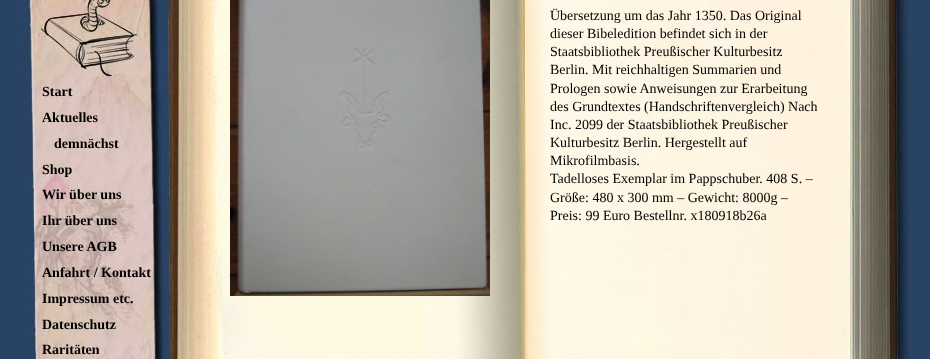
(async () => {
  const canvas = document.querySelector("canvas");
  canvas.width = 930;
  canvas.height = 359;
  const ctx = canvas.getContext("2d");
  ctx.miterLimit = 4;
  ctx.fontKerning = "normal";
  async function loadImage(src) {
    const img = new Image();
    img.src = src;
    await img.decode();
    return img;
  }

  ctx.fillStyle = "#294364";
  ctx.fillRect(0, 0, 930, 359);
  ctx.drawImage(await loadImage("img/1.png"), 23, 0, 141, 359);
  ctx.drawImage(await loadImage("img/2.png"), 165, 0, 744, 359);
  ctx.drawImage(await loadImage("img/3.png"), 230, 0, 260, 296);
  ctx.font = "bold 14px Liberation Serif";
  ctx.fillStyle = "#000000";
  for (const [text, x, y] of [
    ["Start", 42, 96],
    ["Aktuelles", 42, 122],
    ["demnächst", 54, 148],
    ["Shop", 42, 174],
    ["Wir über uns", 42, 199],
    ["Ihr über uns", 42, 225],
    ["Unsere AGB", 42, 251],
    ["Anfahrt / Kontakt", 42, 277],
    ["Impressum etc.", 42, 303],
    ["Datenschutz", 42, 329],
    ["Raritäten", 42, 354],
  ]) {
    ctx.fillText(text, x, y);
  }
  ctx.font = "14px Liberation Serif";
  for (const [text, x, y] of [
    ["Übersetzung um das Jahr 1350. Das Original", 550, 20],
    ["dieser Bibeledition befindet sich in der", 550, 38],
    ["Staatsbibliothek Preußischer Kulturbesitz", 550, 56],
    ["Berlin. Mit reichhaltigen Summarien und", 550, 74],
    ["Prologen sowie Anweisungen zur Erarbeitung", 550, 93],
    ["des Grundtextes (Handschriftenvergleich) Nach", 550, 111],
    ["Inc. 2099 der Staatsbibliothek Preußischer", 550, 129],
    ["Kulturbesitz Berlin. Hergestellt auf", 550, 147],
    ["Mikrofilmbasis.", 550, 165],
    ["Tadelloses Exemplar im Pappschuber. 408 S. –", 550, 183],
    ["Größe: 480 x 300 mm – Gewicht: 8000g –", 550, 202],
    ["Preis: 99 Euro Bestellnr. x180918b26a", 550, 220],
  ]) {
    ctx.fillText(text, x, y);
  }
})();
